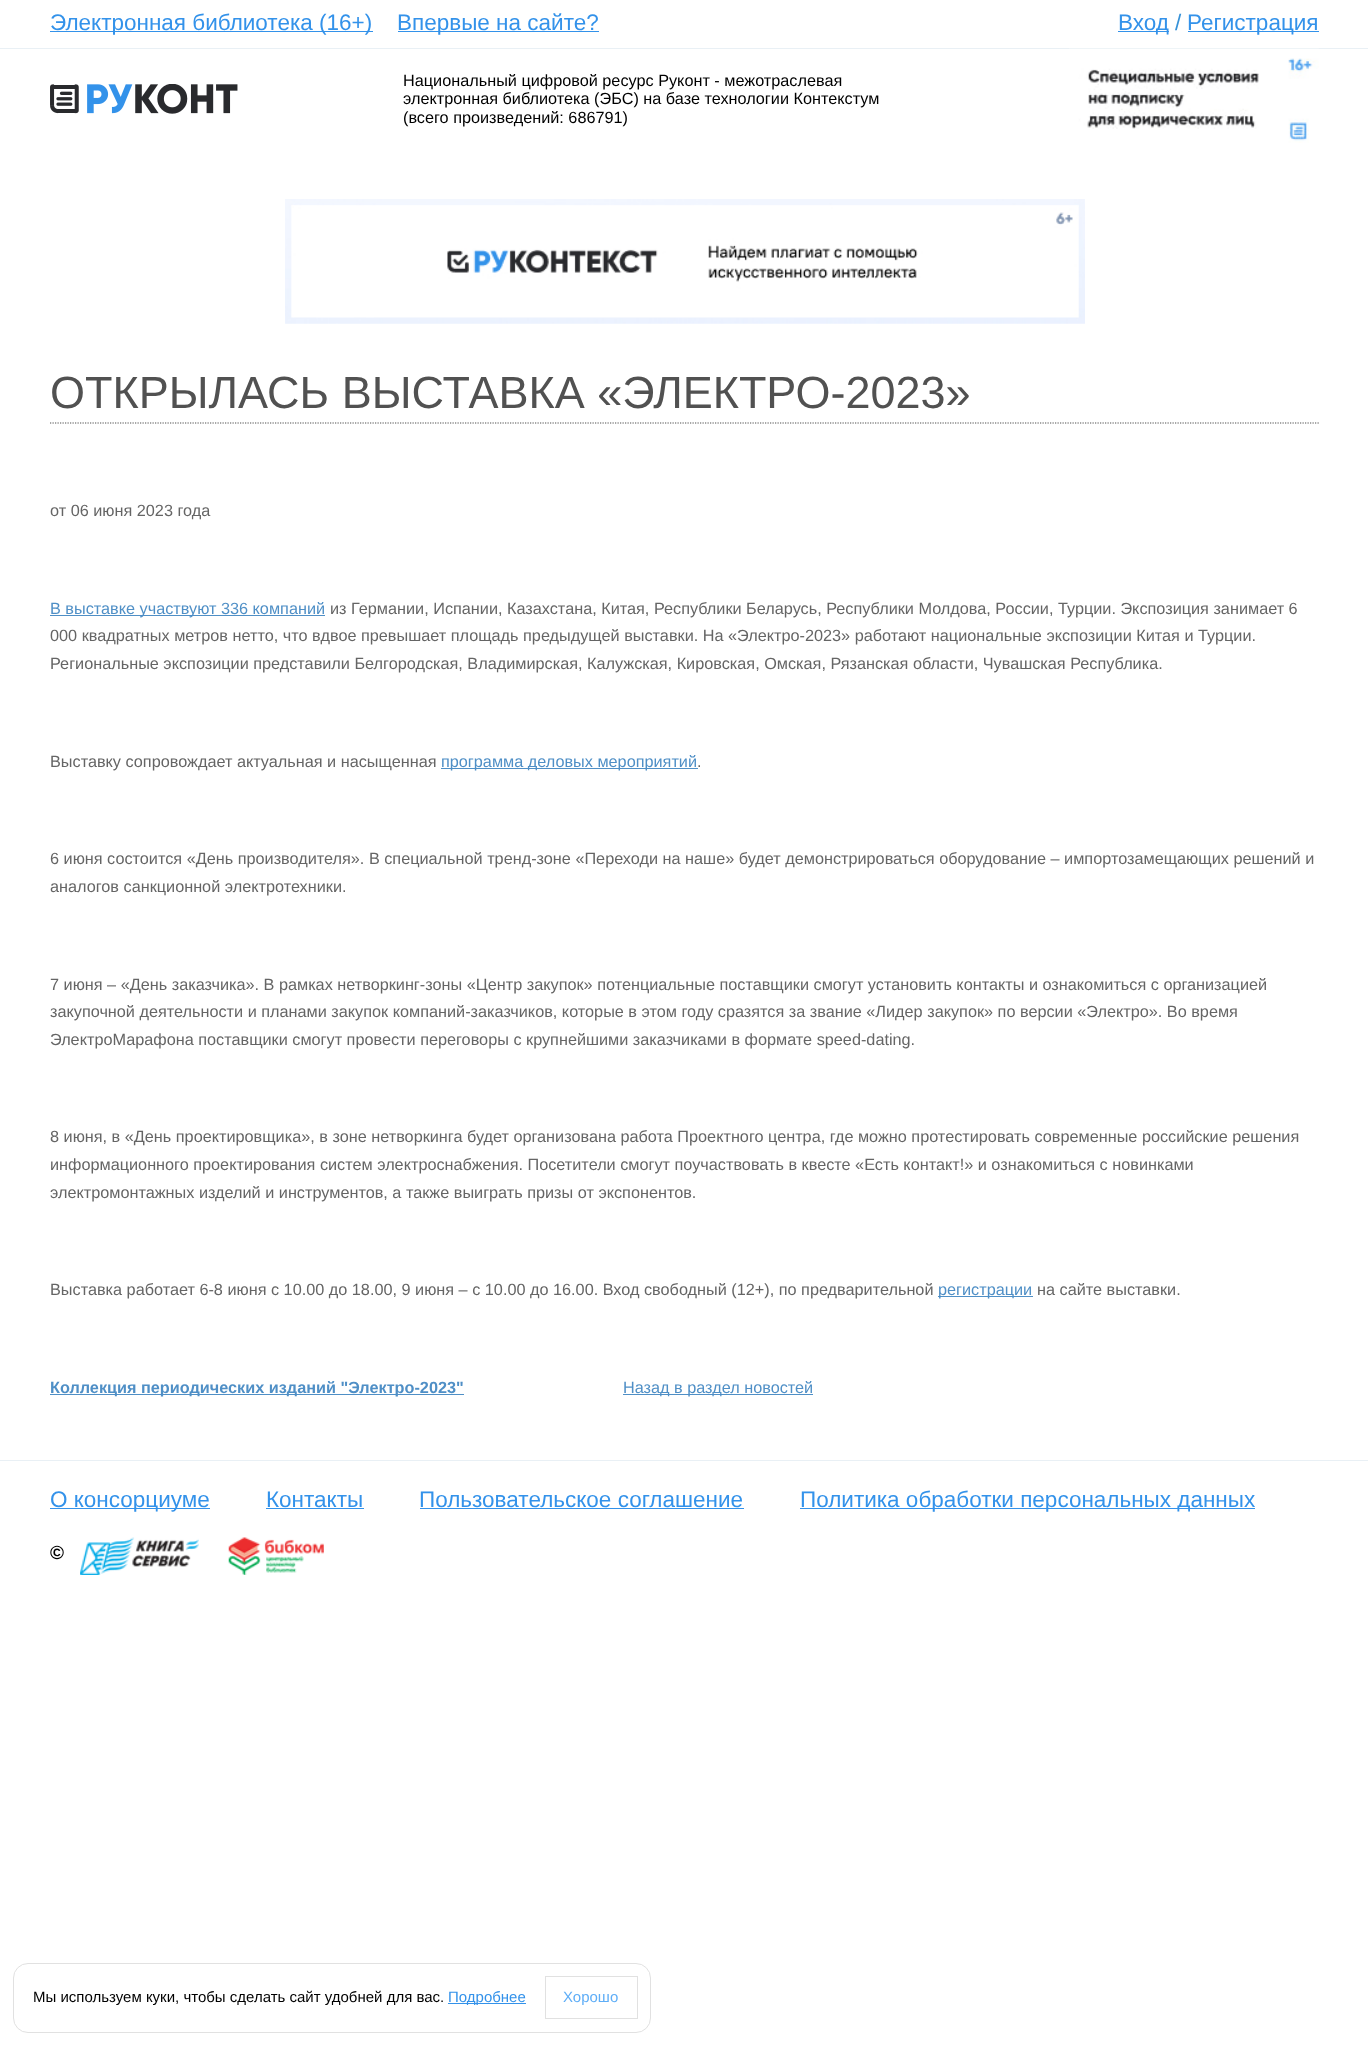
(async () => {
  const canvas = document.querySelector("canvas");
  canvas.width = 1368;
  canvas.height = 2045;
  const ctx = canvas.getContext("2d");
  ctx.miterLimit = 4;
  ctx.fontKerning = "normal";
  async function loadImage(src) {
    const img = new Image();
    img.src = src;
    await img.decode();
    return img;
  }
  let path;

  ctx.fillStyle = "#ffffff";
  ctx.fillRect(0, 0, 1368, 2045);
  for (const [x, y, w, h, color] of [
    [50, 31, 323, 1, "#3392ea"],
    [398, 31, 201, 1, "#3392ea"],
    [1118, 31, 51, 1, "#3392ea"],
    [1188, 31, 131, 1, "#3392ea"],
    [0, 48, 1368, 1, "#e9f0f5"],
  ]) {
    ctx.fillStyle = color;
    ctx.fillRect(x, y, w, h);
  }
  ctx.drawImage(await loadImage("img/1.png"), 50, 84, 188, 30);
  ctx.drawImage(await loadImage("img/2.png"), 1069, 48, 250, 95);
  ctx.drawImage(await loadImage("img/3.png"), 285, 199, 800, 125);
  path = new Path2D("M50 423H1319");
  ctx.strokeStyle = "#515151";
  ctx.lineWidth = 1.2;
  ctx.setLineDash([1.25, 1.25]);
  ctx.stroke(path);
  for (const [x, y, w, h, color] of [
    [50, 615, 275, 1, "#4f8fc6"],
    [441, 768, 257, 1, "#4f8fc6"],
    [938, 1296, 95, 1, "#4f8fc6"],
    [50, 1394, 414, 1, "#4f8fc6"],
    [623, 1394, 190, 1, "#4f8fc6"],
    [0, 1460, 1368, 1, "#e9f0f5"],
    [50, 1508, 160, 1, "#3392ea"],
    [266, 1508, 98, 1, "#3392ea"],
    [420, 1508, 324, 1, "#3392ea"],
    [800, 1508, 455, 1, "#3392ea"],
  ]) {
    ctx.fillStyle = color;
    ctx.fillRect(x, y, w, h);
  }
  ctx.drawImage(await loadImage("img/4.png"), 80, 1537, 119, 38);
  ctx.drawImage(await loadImage("img/5.png"), 228, 1537, 96, 38);
  ctx.beginPath();
  ctx.roundRect(13.5, 1963.5, 637, 69, 14.5);
  ctx.strokeStyle = "#e1e1e1";
  ctx.lineWidth = 1;
  ctx.setLineDash([]);
  ctx.stroke();
  ctx.fillRect(448, 2003, 78, 1);
  ctx.strokeRect(545.5, 1976.5, 92, 42);
  ctx.font = "22.5px Liberation Sans";
  for (const [text, x, y] of [
    ["Электронная библиотека (16+)", 50, 30],
    ["Впервые на сайте?", 397, 30],
    ["Вход", 1118, 30],
  ]) {
    ctx.fillText(text, x, y);
  }
  ctx.fillStyle = "#3692d8";
  ctx.fillText("/", 1175, 30);
  ctx.fillStyle = "#3392ea";
  ctx.fillText("Регистрация", 1187, 30);
  ctx.font = "16.25px Liberation Sans";
  ctx.fillStyle = "#000000";
  for (const [text, x, y] of [
    ["Национальный цифровой ресурс Руконт - межотраслевая", 403, 86],
    ["электронная библиотека (ЭБС) на базе технологии Контекстум", 403, 104],
    ["(всего произведений: 686791)", 403, 123],
  ]) {
    ctx.fillText(text, x, y);
  }
  ctx.font = "45px Liberation Sans";
  ctx.fillStyle = "#515151";
  ctx.fillText("ОТКРЫЛАСЬ ВЫСТАВКА «ЭЛЕКТРО-2023»", 50, 408);
  ctx.font = "16.25px Liberation Sans";
  ctx.fillStyle = "#656565";
  ctx.fillText("от 06 июня 2023 года", 50, 516);
  ctx.fillStyle = "#4f8fc6";
  ctx.fillText("В выставке участвуют 336 компаний", 50, 614);
  ctx.fillStyle = "#656565";
  for (const [text, x, y] of [
    ["из Германии, Испании, Казахстана, Китая, Республики Беларусь, Республики Молдова, России, Турции. Экспозиция занимает 6", 330, 614],
    ["000 квадратных метров нетто, что вдвое превышает площадь предыдущей выставки. На «Электро-2023» работают национальные экспозиции Китая и Турции.", 50, 641],
    ["Региональные экспозиции представили Белгородская, Владимирская, Калужская, Кировская, Омская, Рязанская области, Чувашская Республика.", 50, 669],
    ["Выставку сопровождает актуальная и насыщенная", 50, 767],
  ]) {
    ctx.fillText(text, x, y);
  }
  ctx.fillStyle = "#4f8fc6";
  ctx.fillText("программа деловых мероприятий", 441, 767);
  ctx.fillStyle = "#656565";
  for (const [text, x, y] of [
    [".", 697, 767],
    ["6 июня состоится «День производителя». В специальной тренд-зоне «Переходи на наше» будет демонстрироваться оборудование – импортозамещающих решений и", 50, 864],
    ["аналогов санкционной электротехники.", 50, 892],
    ["7 июня – «День заказчика». В рамках нетворкинг-зоны «Центр закупок» потенциальные поставщики смогут установить контакты и ознакомиться с организацией", 50, 990],
    ["закупочной деятельности и планами закупок компаний-заказчиков, которые в этом году сразятся за звание «Лидер закупок» по версии «Электро». Во время", 50, 1017],
    ["ЭлектроМарафона поставщики смогут провести переговоры с крупнейшими заказчиками в формате speed-dating.", 50, 1045],
    ["8 июня, в «День проектировщика», в зоне нетворкинга будет организована работа Проектного центра, где можно протестировать современные российские решения", 50, 1142],
    ["информационного проектирования систем электроснабжения. Посетители смогут поучаствовать в квесте «Есть контакт!» и ознакомиться с новинками", 50, 1170],
    ["электромонтажных изделий и инструментов, а также выиграть призы от экспонентов.", 50, 1198],
    ["Выставка работает 6-8 июня с 10.00 до 18.00, 9 июня – с 10.00 до 16.00. Вход свободный (12+), по предварительной", 50, 1295],
  ]) {
    ctx.fillText(text, x, y);
  }
  ctx.fillStyle = "#4f8fc6";
  ctx.fillText("регистрации", 938, 1295);
  ctx.fillStyle = "#656565";
  ctx.fillText("на сайте выставки.", 1037, 1295);
  ctx.font = "bold 16.25px Liberation Sans";
  ctx.fillStyle = "#4f8fc6";
  ctx.fillText("Коллекция периодических изданий \"Электро-2023\"", 50, 1393);
  ctx.font = "16.25px Liberation Sans";
  ctx.fillText("Назад в раздел новостей", 623, 1393);
  ctx.font = "22.5px Liberation Sans";
  ctx.fillStyle = "#3392ea";
  for (const [text, x, y] of [
    ["О консорциуме", 50, 1507],
    ["Контакты", 266, 1507],
    ["Пользовательское соглашение", 419, 1507],
    ["Политика обработки персональных данных", 800, 1507],
  ]) {
    ctx.fillText(text, x, y);
  }
  ctx.font = "bold 19px Liberation Sans";
  ctx.fillStyle = "#000000";
  ctx.fillText("©", 50, 1559);
  ctx.font = "15px Liberation Sans";
  ctx.fillText("Мы используем куки, чтобы сделать сайт удобней для вас.", 33, 2002);
  ctx.fillStyle = "#3392ea";
  ctx.fillText("Подробнее", 448, 2002);
  ctx.fillStyle = "#5faef7";
  ctx.fillText("Хорошо", 563, 2002);
})();
